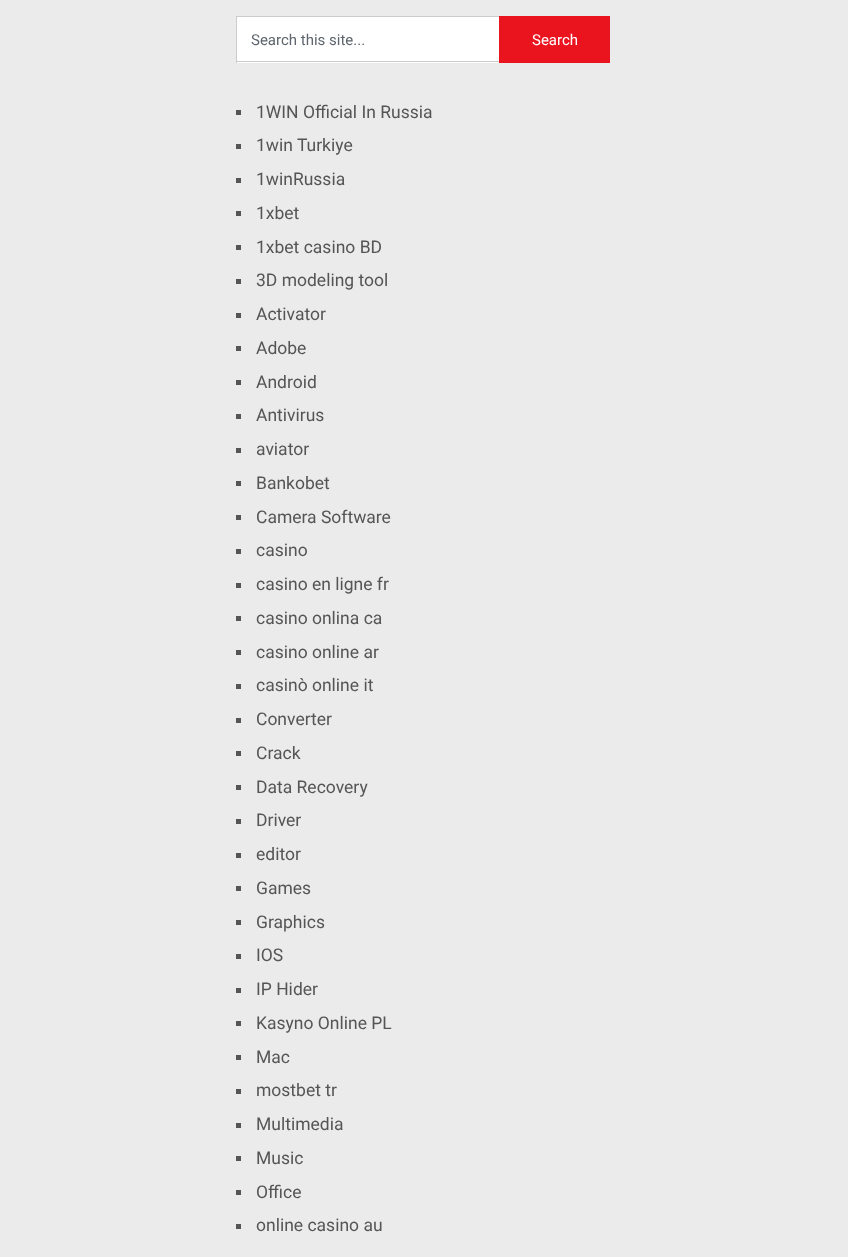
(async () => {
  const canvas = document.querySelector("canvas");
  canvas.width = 848;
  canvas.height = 1257;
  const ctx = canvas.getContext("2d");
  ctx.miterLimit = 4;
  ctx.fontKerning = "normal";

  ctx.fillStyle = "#ebebeb";
  ctx.fillRect(0, 0, 848, 1257);
  for (const [x, y, w, h, color] of [
    [237, 17, 262, 46, "#ffffff"],
    [236, 16, 263, 1, "#cccccc"],
    [236, 61, 263, 1, "#cccccc"],
    [236, 16, 1, 47, "#cccccc"],
    [499, 16, 111, 47, "#ea141f"],
    [236, 110, 5, 5, "#555555"],
    [236, 144, 5, 5, "#555555"],
    [236, 178, 5, 5, "#555555"],
    [236, 211, 5, 5, "#555555"],
    [236, 245, 5, 5, "#555555"],
    [236, 279, 5, 5, "#555555"],
    [236, 313, 5, 5, "#555555"],
    [236, 346, 5, 5, "#555555"],
    [236, 380, 5, 5, "#555555"],
    [236, 414, 5, 5, "#555555"],
    [236, 448, 5, 5, "#555555"],
    [236, 481, 5, 5, "#555555"],
    [236, 515, 5, 5, "#555555"],
    [236, 549, 5, 5, "#555555"],
    [236, 583, 5, 5, "#555555"],
    [236, 616, 5, 5, "#555555"],
    [236, 650, 5, 5, "#555555"],
    [236, 684, 5, 5, "#555555"],
    [236, 718, 5, 5, "#555555"],
    [236, 751, 5, 5, "#555555"],
    [236, 785, 5, 5, "#555555"],
    [236, 819, 5, 5, "#555555"],
    [236, 853, 5, 5, "#555555"],
    [236, 886, 5, 5, "#555555"],
    [236, 920, 5, 5, "#555555"],
    [236, 954, 5, 5, "#555555"],
    [236, 988, 5, 5, "#555555"],
    [236, 1021, 5, 5, "#555555"],
    [236, 1055, 5, 5, "#555555"],
    [236, 1089, 5, 5, "#555555"],
    [236, 1123, 5, 5, "#555555"],
    [236, 1156, 5, 5, "#555555"],
    [236, 1190, 5, 5, "#555555"],
    [236, 1224, 5, 5, "#555555"],
  ]) {
    ctx.fillStyle = color;
    ctx.fillRect(x, y, w, h);
  }
  ctx.font = "15px Roboto";
  ctx.fillStyle = "#5e656d";
  ctx.fillText("Search this site...", 251, 45);
  ctx.fillStyle = "#ffffff";
  ctx.fillText("Search", 532, 45);
  ctx.font = "17.5px Roboto";
  ctx.fillStyle = "#555555";
  for (const [text, x, y] of [
    ["1WIN Official In Russia", 256, 118],
    ["1win Turkiye", 256, 151],
    ["1winRussia", 256, 185],
    ["1xbet", 256, 219],
    ["1xbet casino BD", 256, 253],
    ["3D modeling tool", 256, 286],
    ["Activator", 256, 320],
    ["Adobe", 256, 354],
    ["Android", 256, 388],
    ["Antivirus", 256, 421],
    ["aviator", 256, 455],
    ["Bankobet", 256, 489],
    ["Camera Software", 256, 523],
    ["casino", 256, 556],
    ["casino en ligne fr", 256, 590],
    ["casino onlina ca", 256, 624],
    ["casino online ar", 256, 658],
    ["casinò online it", 256, 691],
    ["Converter", 256, 725],
    ["Crack", 256, 759],
    ["Data Recovery", 256, 793],
    ["Driver", 256, 826],
    ["editor", 256, 860],
    ["Games", 256, 894],
    ["Graphics", 256, 928],
    ["IOS", 256, 961],
    ["IP Hider", 256, 995],
    ["Kasyno Online PL", 256, 1029],
    ["Mac", 256, 1063],
    ["mostbet tr", 256, 1096],
    ["Multimedia", 256, 1130],
    ["Music", 256, 1164],
    ["Office", 256, 1198],
    ["online casino au", 256, 1231],
  ]) {
    ctx.fillText(text, x, y);
  }
})();
